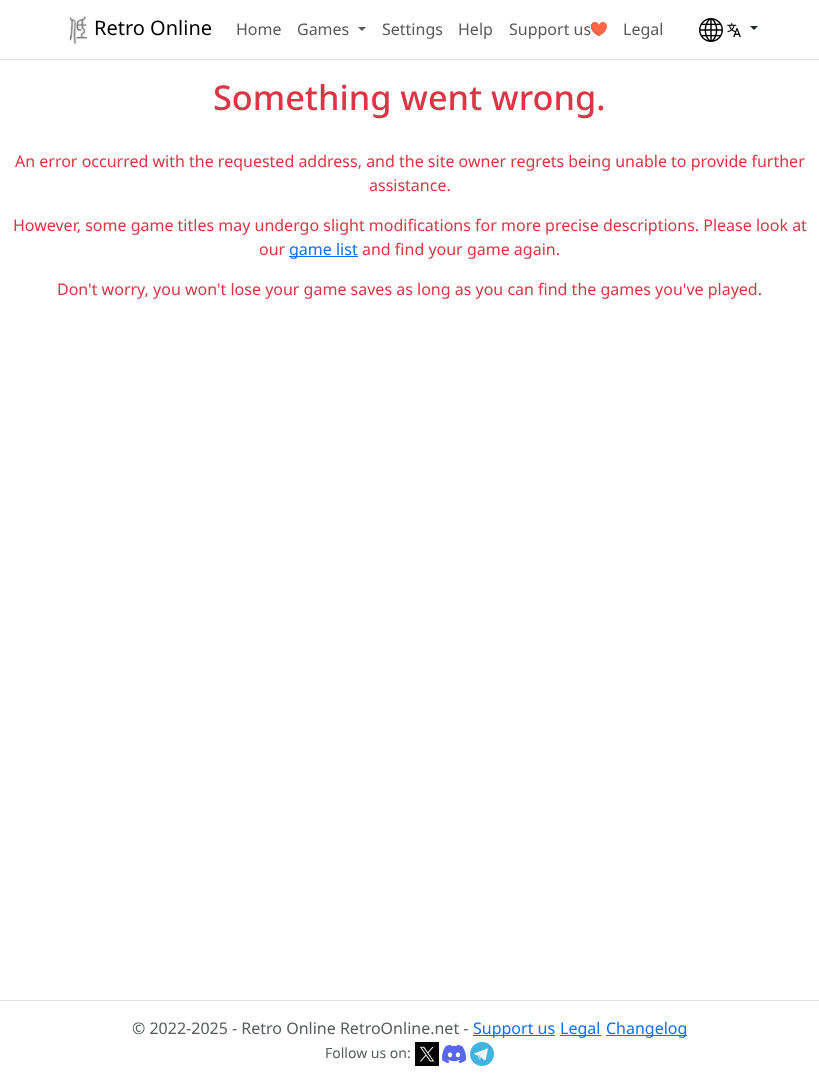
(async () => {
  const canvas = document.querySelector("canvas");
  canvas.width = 819;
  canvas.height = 1081;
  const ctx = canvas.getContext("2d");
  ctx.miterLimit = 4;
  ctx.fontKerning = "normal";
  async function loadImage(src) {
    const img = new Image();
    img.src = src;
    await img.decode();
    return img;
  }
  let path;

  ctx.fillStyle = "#ffffff";
  ctx.fillRect(0, 0, 819, 1081);
  ctx.fillStyle = "#dee2e6";
  ctx.fillRect(0, 59, 819, 1);
  ctx.drawImage(await loadImage("img/1.png"), 69, 15, 19, 30);
  ctx.fillStyle = "#595959";
  path = new Path2D("M358 27H366L362 31Z");
  ctx.fill(path);
  ctx.drawImage(await loadImage("img/2.png"), 591, 21, 16, 15);
  ctx.drawImage(await loadImage("img/3.png"), 699, 18, 24, 24);
  ctx.drawImage(await loadImage("img/4.png"), 727, 23, 14, 14);
  ctx.fillStyle = "#212529";
  path = new Path2D("M750 26H758L754 30Z");
  ctx.fill(path);
  for (const [x, y, w, h, color] of [
    [289, 256, 69, 1, "#0d6efd"],
    [0, 1000, 819, 1, "#dee2e6"],
    [473, 1035, 82, 1, "#0d6efd"],
    [560, 1035, 41, 1, "#0d6efd"],
    [606, 1035, 81, 1, "#0d6efd"],
  ]) {
    ctx.fillStyle = color;
    ctx.fillRect(x, y, w, h);
  }
  ctx.drawImage(await loadImage("img/5.png"), 415, 1042, 24, 24);
  ctx.drawImage(await loadImage("img/6.png"), 442, 1044, 24, 20);
  ctx.drawImage(await loadImage("img/7.png"), 470, 1042, 24, 24);
  ctx.font = "20px Noto Sans";
  ctx.fillStyle = "#000000";
  ctx.fillText("Retro Online", 94, 35);
  ctx.font = "16px Noto Sans";
  ctx.fillStyle = "#595959";
  for (const [text, x, y] of [
    ["Home", 236, 35],
    ["Games", 297, 35],
    ["Settings", 382, 35],
    ["Help", 458, 35],
    ["Support us", 509, 35],
    ["Legal", 623, 35],
  ]) {
    ctx.fillText(text, x, y);
  }
  ctx.font = "500 34.25px Noto Sans";
  ctx.fillStyle = "#dc3545";
  ctx.fillText("Something went wrong.", 213, 110);
  ctx.font = "16px Noto Sans";
  for (const [text, x, y] of [
    ["An error occurred with the requested address, and the site owner regrets being unable to provide further", 15, 167],
    ["assistance.", 369, 191],
    ["However, some game titles may undergo slight modifications for more precise descriptions. Please look at", 13, 231],
    ["our", 259, 255],
  ]) {
    ctx.fillText(text, x, y);
  }
  ctx.fillStyle = "#0d6efd";
  ctx.fillText("game list", 289, 255);
  ctx.fillStyle = "#dc3545";
  ctx.fillText("and find your game again.", 362, 255);
  ctx.fillText("Don't worry, you won't lose your game saves as long as you can find the games you've played.", 57, 295);
  ctx.fillStyle = "#595c5f";
  ctx.fillText("© 2022-2025 - Retro Online RetroOnline.net -", 132, 1034);
  ctx.fillStyle = "#0d6efd";
  for (const [text, x, y] of [
    ["Support us", 473, 1034],
    ["Legal", 560, 1034],
    ["Changelog", 606, 1034],
  ]) {
    ctx.fillText(text, x, y);
  }
  ctx.font = "14px Noto Sans";
  ctx.fillStyle = "#595c5f";
  ctx.fillText("Follow us on:", 325, 1058);
})();
